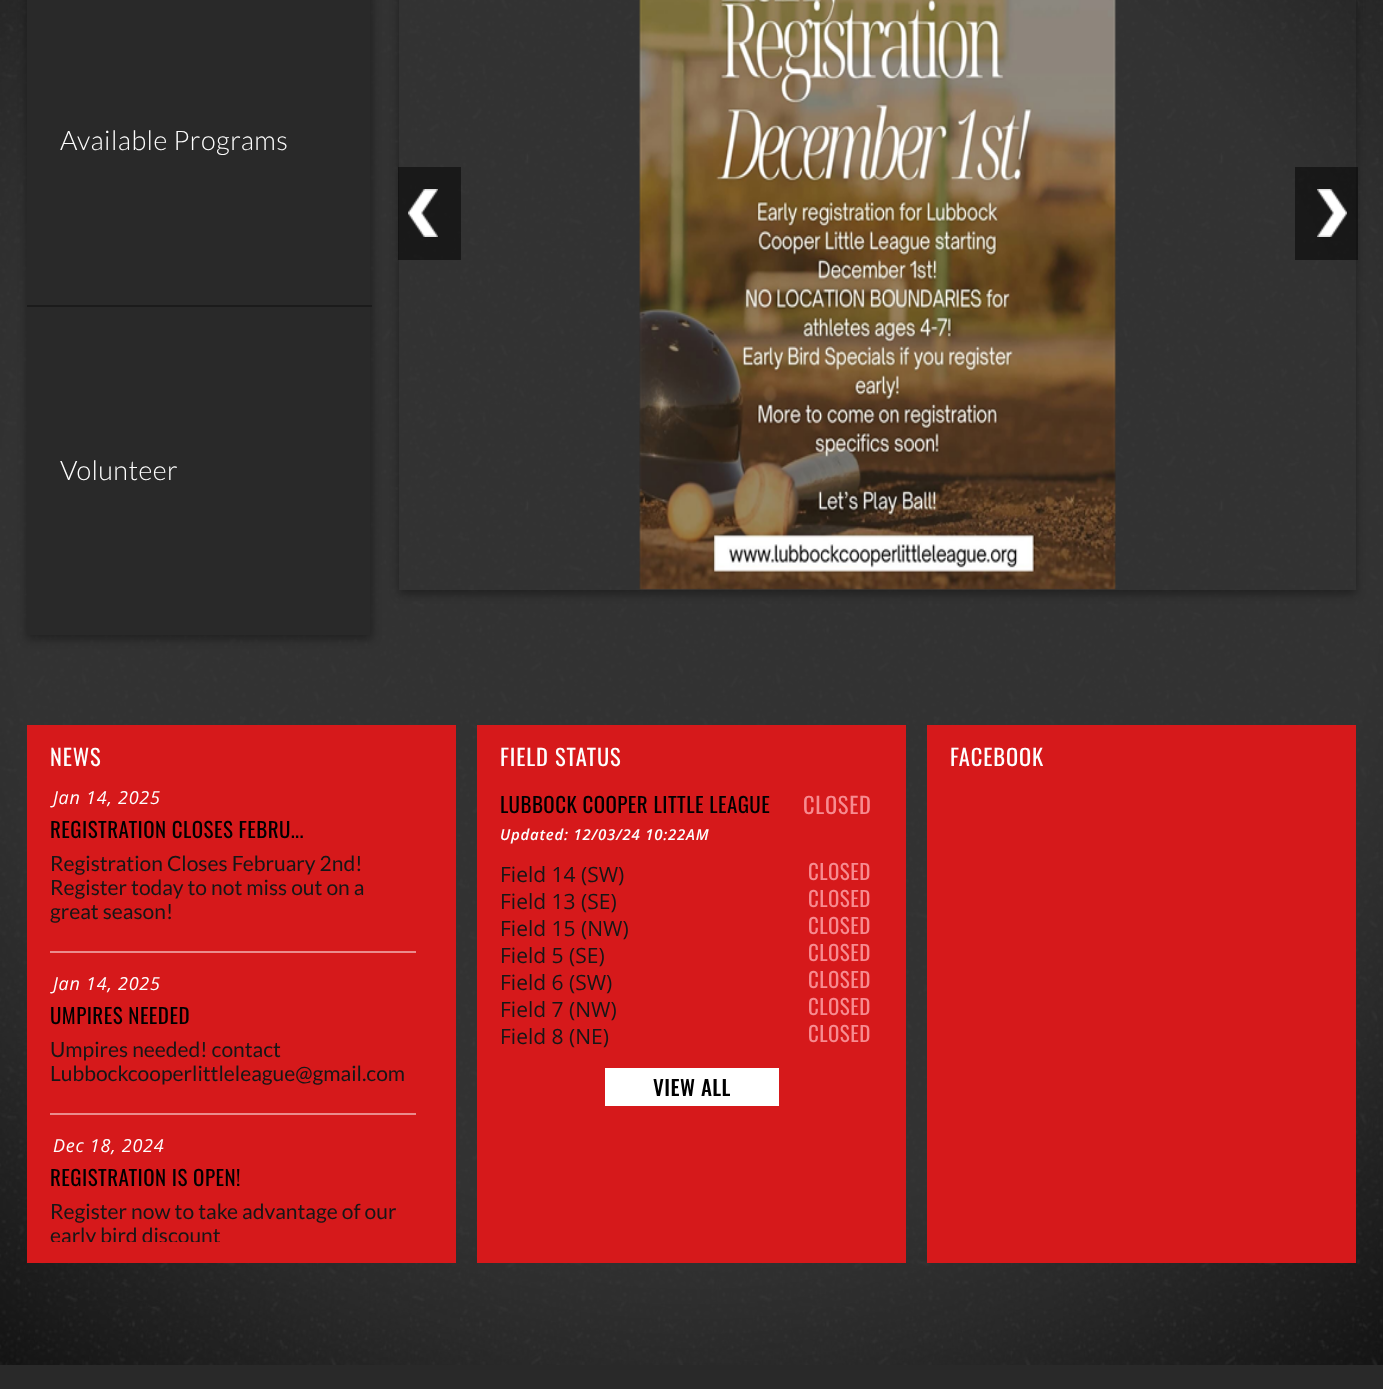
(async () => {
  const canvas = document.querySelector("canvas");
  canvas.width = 1383;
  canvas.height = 1389;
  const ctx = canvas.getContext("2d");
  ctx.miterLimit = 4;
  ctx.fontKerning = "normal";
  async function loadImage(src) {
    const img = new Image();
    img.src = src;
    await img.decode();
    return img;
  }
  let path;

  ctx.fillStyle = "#ffffff";
  ctx.fillRect(0, 0, 1383, 1389);
  ctx.drawImage(await loadImage("img/1.png"), 0, 0, 1383, 1365);
  ctx.drawImage(await loadImage("img/2.png"), 0, 0, 1383, 1365);
  ctx.fillStyle = "rgba(0, 0, 0, 0.35)";
  ctx.filter = "blur(5px)";
  ctx.beginPath();
  ctx.rect(27, -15, 345, 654);
  ctx.fill();
  ctx.filter = "none";
  ctx.fillStyle = "#292929";
  ctx.fillRect(27, 0, 343, 635);
  ctx.fillStyle = "#1b1b1b";
  ctx.fillRect(27, 305, 345, 2);
  ctx.save();
  path = new Path2D("M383 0H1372V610H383ZM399-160H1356V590H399Z");
  ctx.clip(path, "evenodd");
  ctx.fillStyle = "rgba(0, 0, 0, 0.35)";
  ctx.filter = "blur(5px)";
  ctx.beginPath();
  ctx.rect(399, -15, 957, 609);
  ctx.fill();
  ctx.filter = "none";
  ctx.restore();
  ctx.fillStyle = "rgba(0, 0, 0, 0.5)";
  ctx.fillRect(398, 167, 63, 93);
  ctx.drawImage(await loadImage("img/3.png"), 408, 189, 30, 48);
  ctx.drawImage(await loadImage("img/4.png"), 639, 0, 477, 590);
  ctx.fillRect(1295, 167, 63, 93);
  ctx.drawImage(await loadImage("img/5.png"), 1317, 189, 30, 48);
  for (const [x, y, w, h, color] of [
    [27, 725, 429, 538, "#d6191b"],
    [50, 951, 366, 2, "#eb8c8d"],
    [50, 1113, 366, 2, "#eb8c8d"],
    [477, 725, 429, 538, "#d6191b"],
    [605, 1068, 174, 38, "#ffffff"],
    [927, 725, 429, 538, "#d6191b"],
    [0, 1365, 1383, 24, "#292929"],
  ]) {
    ctx.fillStyle = color;
    ctx.fillRect(x, y, w, h);
  }
  ctx.letterSpacing = "0.45px";
  ctx.font = "300 27px Lato";
  ctx.fillStyle = "#fefefe";
  ctx.fillText("Available Programs", 60, 150);
  ctx.fillText("Volunteer", 60, 480);
  ctx.letterSpacing = "0.9px";
  ctx.font = "22.5px Oswald";
  ctx.fillText("NEWS", 50, 766);
  ctx.letterSpacing = "0.75px";
  ctx.font = "italic 18px Open Sans";
  ctx.fillText("Jan 14, 2025", 53, 804);
  ctx.letterSpacing = "0.45px";
  ctx.font = "21px Oswald";
  ctx.fillStyle = "#000000";
  ctx.fillText("REGISTRATION CLOSES FEBRU...", 50, 838);
  ctx.letterSpacing = "0px";
  ctx.font = "21px Lato";
  ctx.fillStyle = "#161616";
  for (const [text, x, y] of [
    ["Registration Closes February 2nd!", 50, 871],
    ["Register today to not miss out on a", 50, 895],
    ["great season!", 50, 919],
  ]) {
    ctx.fillText(text, x, y);
  }
  ctx.letterSpacing = "0.75px";
  ctx.font = "italic 18px Open Sans";
  ctx.fillStyle = "#fefefe";
  ctx.fillText("Jan 14, 2025", 53, 990);
  ctx.letterSpacing = "0.45px";
  ctx.font = "21px Oswald";
  ctx.fillStyle = "#000000";
  ctx.fillText("UMPIRES NEEDED", 50, 1024);
  ctx.letterSpacing = "0px";
  ctx.font = "21px Lato";
  ctx.fillStyle = "#161616";
  ctx.fillText("Umpires needed! contact", 50, 1057);
  ctx.fillText("Lubbockcooperlittleleague@gmail.com", 50, 1081);
  ctx.letterSpacing = "0.75px";
  ctx.font = "italic 18px Open Sans";
  ctx.fillStyle = "#fefefe";
  ctx.fillText("Dec 18, 2024", 53, 1152);
  ctx.letterSpacing = "0.45px";
  ctx.font = "21px Oswald";
  ctx.fillStyle = "#000000";
  ctx.fillText("REGISTRATION IS OPEN!", 50, 1186);
  ctx.letterSpacing = "0px";
  ctx.font = "21px Lato";
  ctx.fillStyle = "#161616";
  ctx.fillText("Register now to take advantage of our", 50, 1219);
  ctx.save();
  ctx.beginPath();
  ctx.rect(50, 789, 384, 453);
  ctx.clip();
  ctx.fillText("early bird discount", 50, 1243);
  ctx.restore();
  ctx.letterSpacing = "0.9px";
  ctx.font = "22.5px Oswald";
  ctx.fillStyle = "#fefefe";
  ctx.fillText("FIELD STATUS", 500, 766);
  ctx.letterSpacing = "0.45px";
  ctx.font = "21px Oswald";
  ctx.fillStyle = "#000000";
  ctx.fillText("LUBBOCK COOPER LITTLE LEAGUE", 500, 813);
  ctx.letterSpacing = "0.75px";
  ctx.font = "22.5px Oswald";
  ctx.fillStyle = "#f78b90";
  ctx.fillText("CLOSED", 803, 814);
  ctx.font = "italic 600 15px Open Sans";
  ctx.fillStyle = "#fefefe";
  ctx.fillText("Updated: 12/03/24 10:22AM", 500, 840);
  ctx.letterSpacing = "0px";
  ctx.font = "21px Open Sans";
  ctx.fillStyle = "#161616";
  ctx.fillText("Field 14 (SW)", 500, 882);
  ctx.letterSpacing = "0.5px";
  ctx.font = "21px Oswald";
  ctx.fillStyle = "#f78b90";
  ctx.fillText("CLOSED", 808, 880);
  ctx.letterSpacing = "0px";
  ctx.font = "21px Open Sans";
  ctx.fillStyle = "#161616";
  ctx.fillText("Field 13 (SE)", 500, 909);
  ctx.letterSpacing = "0.5px";
  ctx.font = "21px Oswald";
  ctx.fillStyle = "#f78b90";
  ctx.fillText("CLOSED", 808, 907);
  ctx.letterSpacing = "0px";
  ctx.font = "21px Open Sans";
  ctx.fillStyle = "#161616";
  ctx.fillText("Field 15 (NW)", 500, 936);
  ctx.letterSpacing = "0.5px";
  ctx.font = "21px Oswald";
  ctx.fillStyle = "#f78b90";
  ctx.fillText("CLOSED", 808, 934);
  ctx.letterSpacing = "0px";
  ctx.font = "21px Open Sans";
  ctx.fillStyle = "#161616";
  ctx.fillText("Field 5 (SE)", 500, 963);
  ctx.letterSpacing = "0.5px";
  ctx.font = "21px Oswald";
  ctx.fillStyle = "#f78b90";
  ctx.fillText("CLOSED", 808, 961);
  ctx.letterSpacing = "0px";
  ctx.font = "21px Open Sans";
  ctx.fillStyle = "#161616";
  ctx.fillText("Field 6 (SW)", 500, 990);
  ctx.letterSpacing = "0.5px";
  ctx.font = "21px Oswald";
  ctx.fillStyle = "#f78b90";
  ctx.fillText("CLOSED", 808, 988);
  ctx.letterSpacing = "0px";
  ctx.font = "21px Open Sans";
  ctx.fillStyle = "#161616";
  ctx.fillText("Field 7 (NW)", 500, 1017);
  ctx.letterSpacing = "0.5px";
  ctx.font = "21px Oswald";
  ctx.fillStyle = "#f78b90";
  ctx.fillText("CLOSED", 808, 1015);
  ctx.letterSpacing = "0px";
  ctx.font = "21px Open Sans";
  ctx.fillStyle = "#161616";
  ctx.fillText("Field 8 (NE)", 500, 1044);
  ctx.letterSpacing = "0.5px";
  ctx.font = "21px Oswald";
  ctx.fillStyle = "#f78b90";
  ctx.fillText("CLOSED", 808, 1042);
  ctx.letterSpacing = "0.45px";
  ctx.font = "500 21px Oswald";
  ctx.fillStyle = "#000000";
  ctx.fillText("VIEW ALL", 653, 1096);
  ctx.letterSpacing = "0.9px";
  ctx.font = "22.5px Oswald";
  ctx.fillStyle = "#fefefe";
  ctx.fillText("FACEBOOK", 950, 766);
})();
